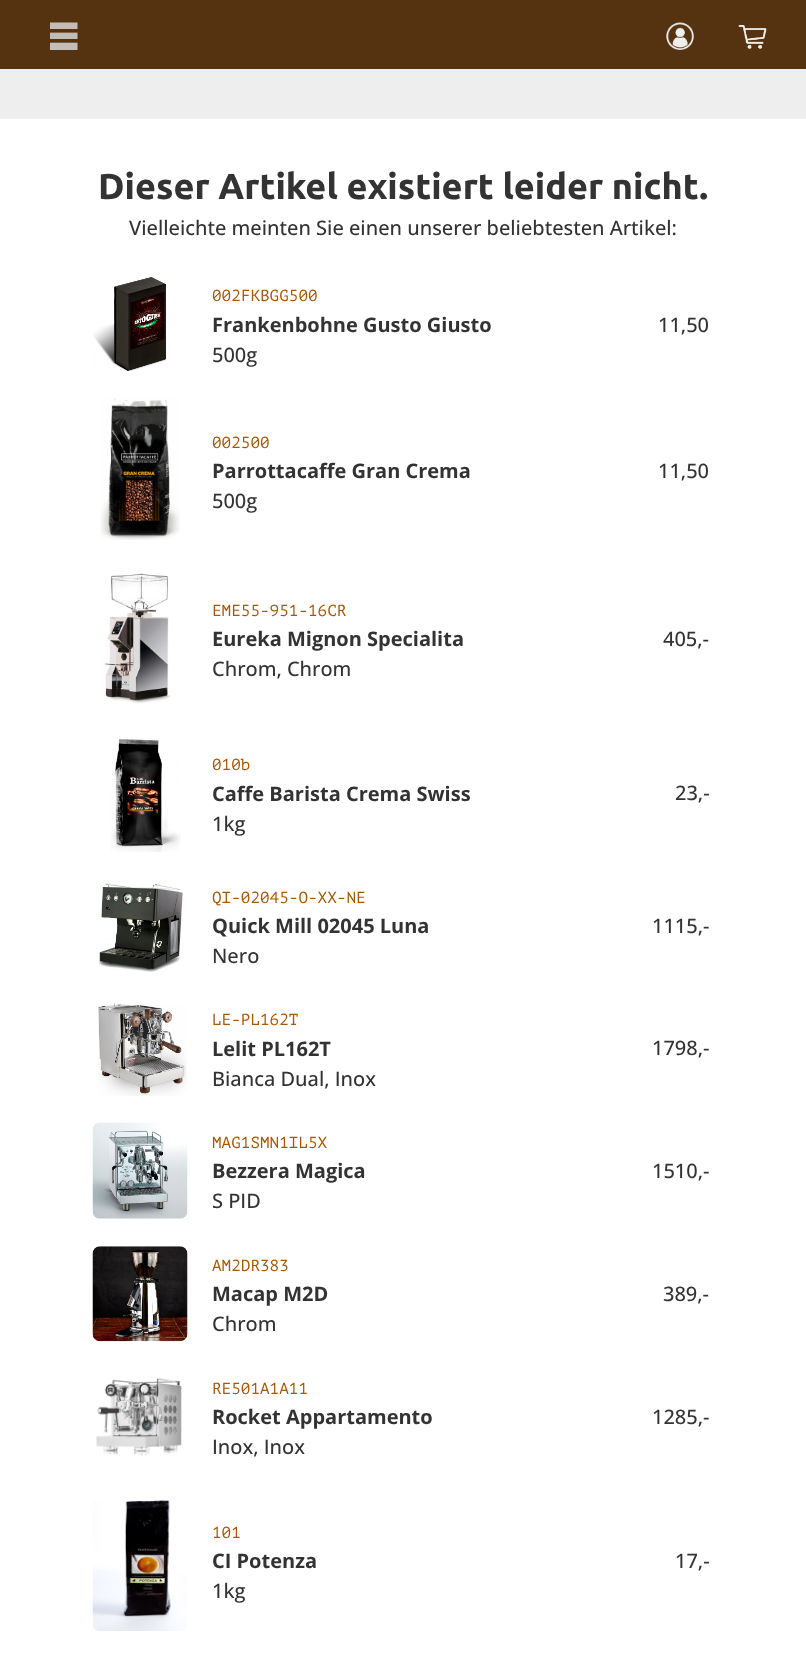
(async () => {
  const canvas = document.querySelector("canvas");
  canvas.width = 806;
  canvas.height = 1656;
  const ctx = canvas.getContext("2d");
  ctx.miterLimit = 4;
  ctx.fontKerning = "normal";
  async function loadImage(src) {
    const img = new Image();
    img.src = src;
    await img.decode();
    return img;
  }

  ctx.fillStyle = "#ffffff";
  ctx.fillRect(0, 0, 806, 1656);
  ctx.fillStyle = "#553311";
  ctx.fillRect(0, 0, 806, 69);
  ctx.drawImage(await loadImage("img/1.png"), 50, 22, 28, 28);
  ctx.drawImage(await loadImage("img/2.png"), 666, 22, 28, 28);
  ctx.drawImage(await loadImage("img/3.png"), 738, 25, 29, 24);
  ctx.fillStyle = "#eeeeee";
  ctx.fillRect(0, 69, 806, 50);
  ctx.drawImage(await loadImage("img/4.png"), 93, 277, 74, 94);
  ctx.drawImage(await loadImage("img/5.png"), 100, 398, 80, 142);
  ctx.drawImage(await loadImage("img/6.png"), 104, 573, 67, 131);
  ctx.drawImage(await loadImage("img/7.png"), 110, 738, 71, 114);
  ctx.drawImage(await loadImage("img/8.png"), 98, 883, 85, 89);
  ctx.drawImage(await loadImage("img/9.png"), 98, 1003, 89, 93);
  ctx.drawImage(await loadImage("img/10.png"), 92, 1122, 96, 97);
  ctx.drawImage(await loadImage("img/11.png"), 92, 1246, 96, 96);
  ctx.drawImage(await loadImage("img/12.png"), 96, 1378, 86, 78);
  ctx.drawImage(await loadImage("img/13.png"), 92, 1500, 95, 131);
  ctx.font = "bold 36px Ubuntu";
  ctx.fillStyle = "#333333";
  ctx.fillText("Dieser Artikel existiert leider nicht.", 98, 199);
  ctx.font = "500 20px Open Sans";
  ctx.fillText("Vielleichte meinten Sie einen unserer beliebtesten Artikel:", 129, 235);
  ctx.font = "16px PT Mono";
  ctx.fillStyle = "#aa5500";
  ctx.fillText("002FKBGG500", 212, 301);
  ctx.font = "bold 20px Open Sans";
  ctx.fillStyle = "#333333";
  ctx.fillText("Frankenbohne Gusto Giusto", 212, 332);
  ctx.font = "500 20px Open Sans";
  ctx.fillText("500g", 212, 362);
  ctx.fillText("11,50", 658, 332);
  ctx.font = "16px PT Mono";
  ctx.fillStyle = "#aa5500";
  ctx.fillText("002500", 212, 448);
  ctx.font = "bold 20px Open Sans";
  ctx.fillStyle = "#333333";
  ctx.fillText("Parrottacaffe Gran Crema", 212, 478);
  ctx.font = "500 20px Open Sans";
  ctx.fillText("500g", 212, 508);
  ctx.fillText("11,50", 658, 478);
  ctx.font = "16px PT Mono";
  ctx.fillStyle = "#aa5500";
  ctx.fillText("EME55-951-16CR", 212, 616);
  ctx.font = "bold 20px Open Sans";
  ctx.fillStyle = "#333333";
  ctx.fillText("Eureka Mignon Specialita", 212, 646);
  ctx.font = "500 20px Open Sans";
  ctx.fillText("Chrom, Chrom", 212, 676);
  ctx.fillText("405,-", 663, 646);
  ctx.font = "16px PT Mono";
  ctx.fillStyle = "#aa5500";
  ctx.fillText("010b", 212, 770);
  ctx.font = "bold 20px Open Sans";
  ctx.fillStyle = "#333333";
  ctx.fillText("Caffe Barista Crema Swiss", 212, 801);
  ctx.font = "500 20px Open Sans";
  ctx.fillText("1kg", 212, 831);
  ctx.fillText("23,-", 675, 800);
  ctx.font = "16px PT Mono";
  ctx.fillStyle = "#aa5500";
  ctx.fillText("QI-02045-O-XX-NE", 212, 903);
  ctx.font = "bold 20px Open Sans";
  ctx.fillStyle = "#333333";
  ctx.fillText("Quick Mill 02045 Luna", 212, 933);
  ctx.font = "500 20px Open Sans";
  ctx.fillText("Nero", 212, 963);
  ctx.fillText("1115,-", 652, 933);
  ctx.font = "16px PT Mono";
  ctx.fillStyle = "#aa5500";
  ctx.fillText("LE-PL162T", 212, 1025);
  ctx.font = "bold 20px Open Sans";
  ctx.fillStyle = "#333333";
  ctx.fillText("Lelit PL162T", 212, 1056);
  ctx.font = "500 20px Open Sans";
  ctx.fillText("Bianca Dual, Inox", 212, 1086);
  ctx.fillText("1798,-", 652, 1055);
  ctx.font = "16px PT Mono";
  ctx.fillStyle = "#aa5500";
  ctx.fillText("MAG1SMN1IL5X", 212, 1148);
  ctx.font = "bold 20px Open Sans";
  ctx.fillStyle = "#333333";
  ctx.fillText("Bezzera Magica", 212, 1178);
  ctx.font = "500 20px Open Sans";
  ctx.fillText("S PID", 212, 1208);
  ctx.fillText("1510,-", 652, 1178);
  ctx.font = "16px PT Mono";
  ctx.fillStyle = "#aa5500";
  ctx.fillText("AM2DR383", 212, 1271);
  ctx.font = "bold 20px Open Sans";
  ctx.fillStyle = "#333333";
  ctx.fillText("Macap M2D", 212, 1301);
  ctx.font = "500 20px Open Sans";
  ctx.fillText("Chrom", 212, 1331);
  ctx.fillText("389,-", 663, 1301);
  ctx.font = "16px PT Mono";
  ctx.fillStyle = "#aa5500";
  ctx.fillText("RE501A1A11", 212, 1394);
  ctx.font = "bold 20px Open Sans";
  ctx.fillStyle = "#333333";
  ctx.fillText("Rocket Appartamento", 212, 1424);
  ctx.font = "500 20px Open Sans";
  ctx.fillText("Inox, Inox", 212, 1454);
  ctx.fillText("1285,-", 652, 1424);
  ctx.font = "16px PT Mono";
  ctx.fillStyle = "#aa5500";
  ctx.fillText("101", 212, 1538);
  ctx.font = "bold 20px Open Sans";
  ctx.fillStyle = "#333333";
  ctx.fillText("CI Potenza", 212, 1568);
  ctx.font = "500 20px Open Sans";
  ctx.fillText("1kg", 212, 1598);
  ctx.fillText("17,-", 675, 1568);
})();
